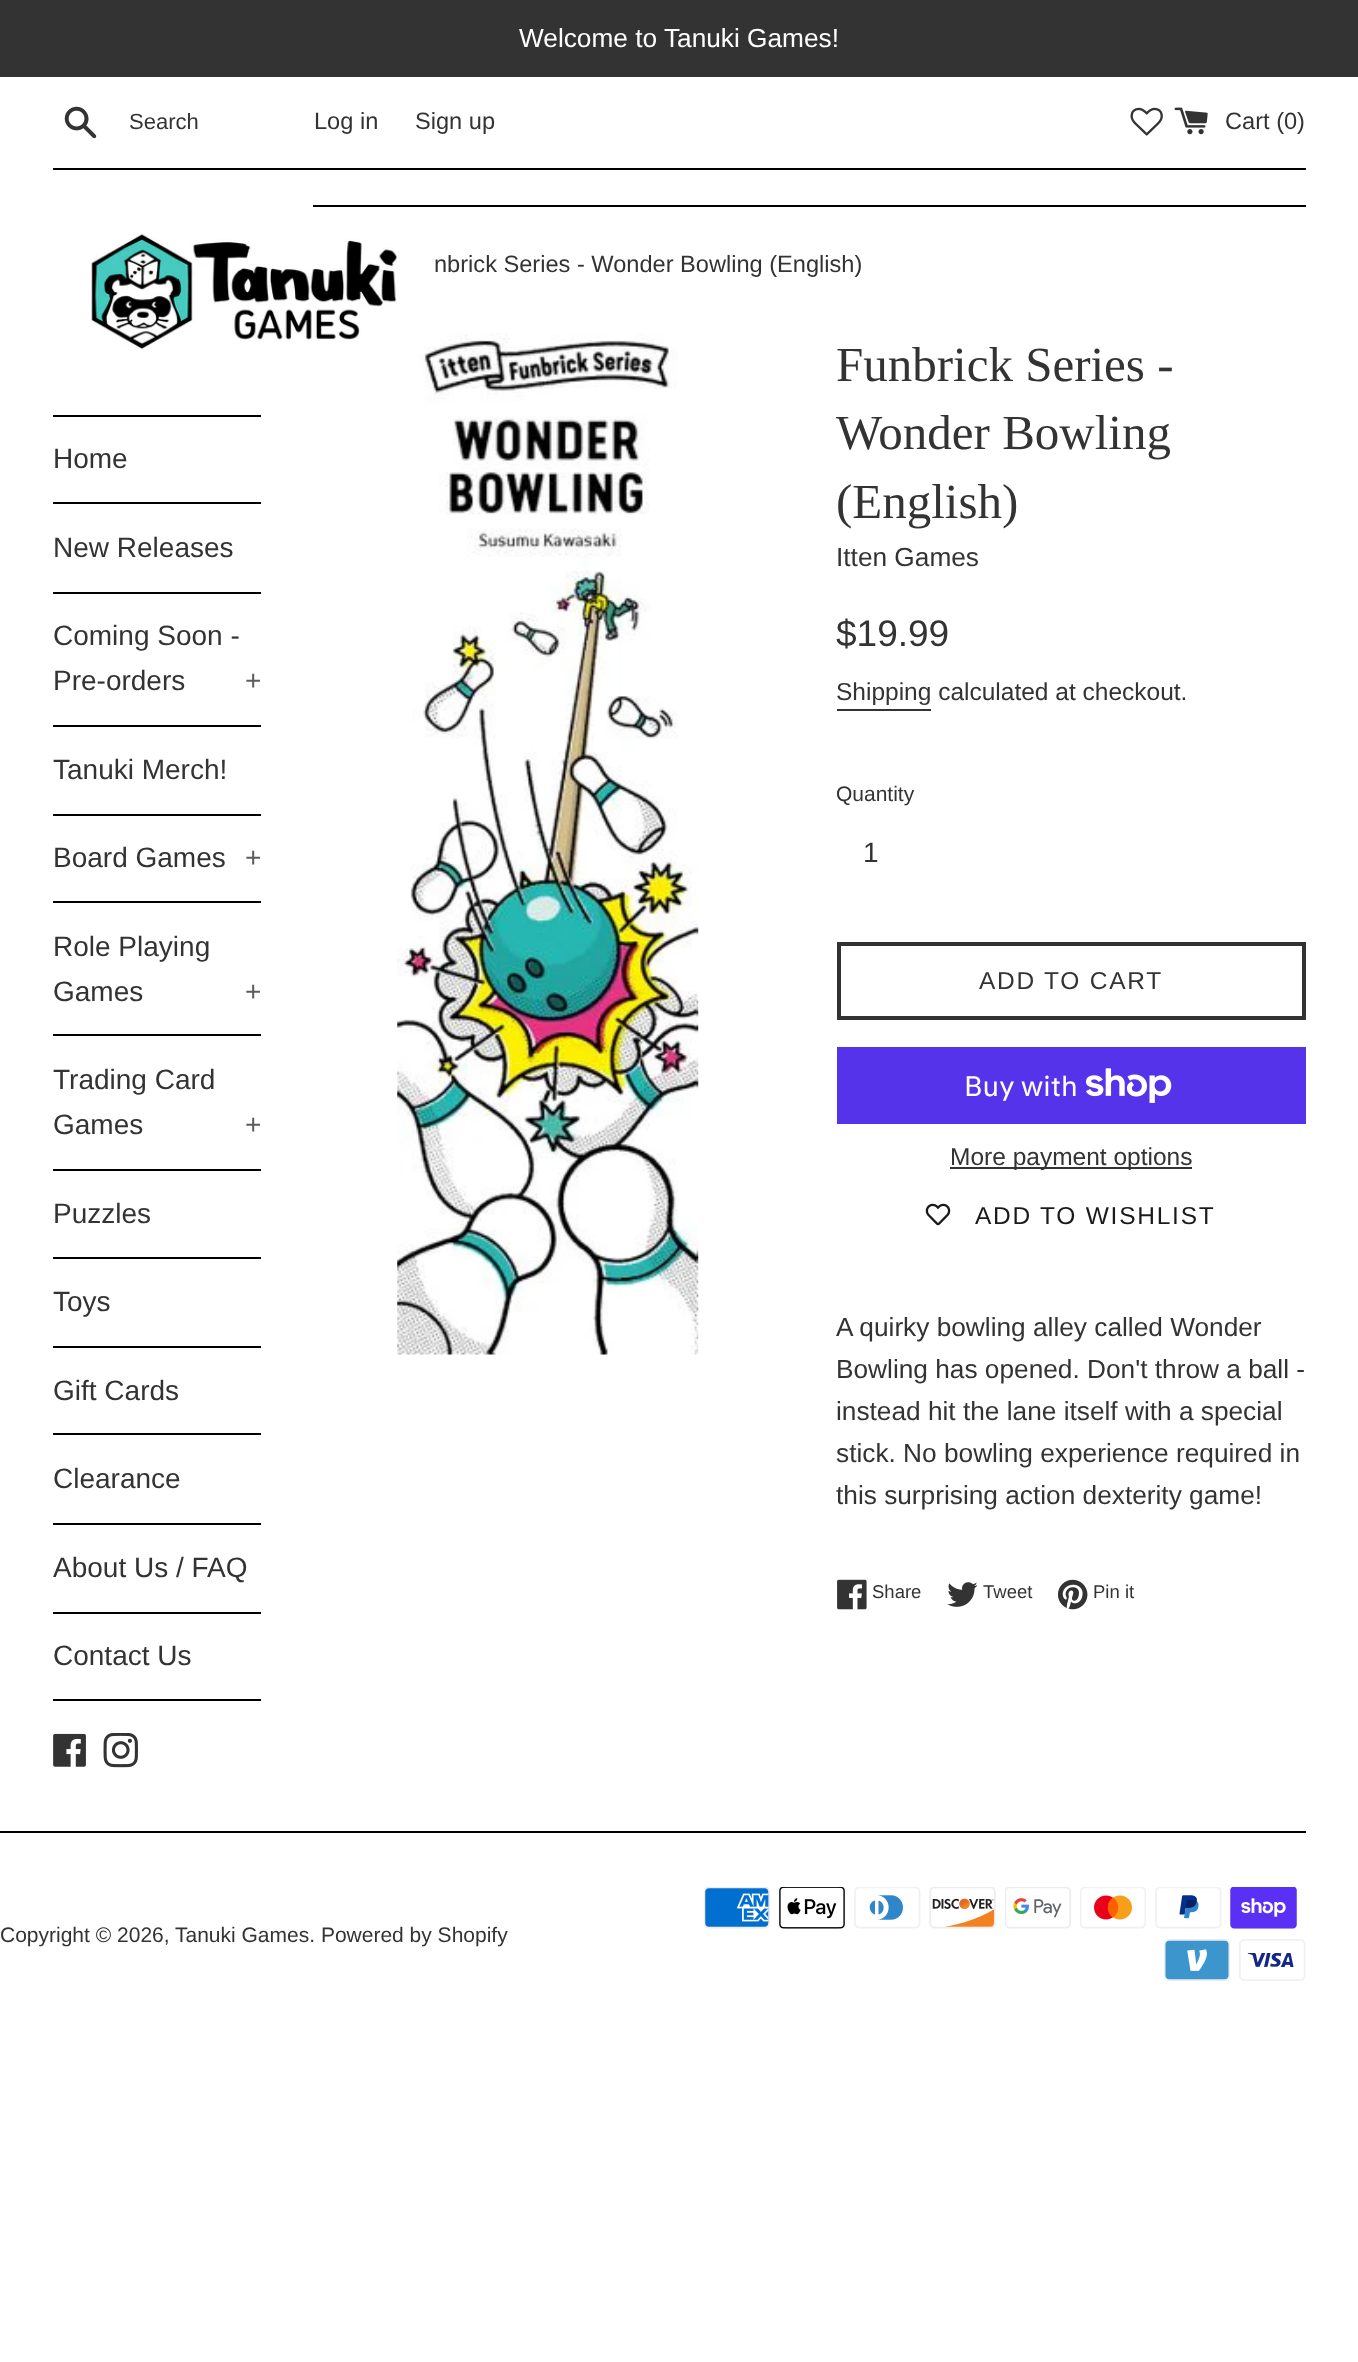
(async () => {
  const canvas = document.querySelector("canvas");
  canvas.width = 1358;
  canvas.height = 2362;
  const ctx = canvas.getContext("2d");
  ctx.miterLimit = 4;
  ctx.fontKerning = "normal";
  async function loadImage(src) {
    const img = new Image();
    img.src = src;
    await img.decode();
    return img;
  }

  ctx.fillStyle = "#ffffff";
  ctx.fillRect(0, 0, 1358, 2362);
  ctx.fillStyle = "#333333";
  ctx.fillRect(0, 0, 1358, 77);
  ctx.drawImage(await loadImage("img/1.png"), 64, 106, 33, 33);
  ctx.drawImage(await loadImage("img/2.png"), 1130, 107, 33, 29);
  ctx.drawImage(await loadImage("img/3.png"), 1174, 107, 34, 28);
  ctx.fillStyle = "#000000";
  ctx.fillRect(53, 168, 1253, 2);
  ctx.drawImage(await loadImage("img/4.png"), 91, 233, 338, 117);
  for (const [x, y, w, h, color] of [
    [53, 415, 208, 2, "#000000"],
    [53, 502, 208, 2, "#000000"],
    [53, 592, 208, 2, "#000000"],
    [53, 725, 208, 2, "#000000"],
    [53, 814, 208, 2, "#000000"],
    [53, 901, 208, 2, "#000000"],
    [53, 1034, 208, 2, "#000000"],
    [53, 1169, 208, 2, "#000000"],
    [53, 1257, 208, 2, "#000000"],
    [53, 1346, 208, 2, "#000000"],
    [53, 1433, 208, 2, "#000000"],
    [53, 1523, 208, 2, "#000000"],
    [53, 1612, 208, 2, "#000000"],
    [53, 1699, 208, 2, "#000000"],
  ]) {
    ctx.fillStyle = color;
    ctx.fillRect(x, y, w, h);
  }
  ctx.drawImage(await loadImage("img/5.png"), 53, 1733, 33, 34);
  ctx.drawImage(await loadImage("img/6.png"), 103, 1733, 35, 35);
  ctx.fillRect(313, 205, 993, 2);
  ctx.drawImage(await loadImage("img/7.png"), 397, 333, 302, 1022);
  ctx.fillStyle = "#333333";
  ctx.fillRect(837, 709, 94, 2);
  ctx.strokeStyle = "#333333";
  ctx.lineWidth = 4;
  ctx.strokeRect(839, 944, 465, 74);
  ctx.fillStyle = "#5433eb";
  ctx.fillRect(837, 1047, 469, 77);
  ctx.drawImage(await loadImage("img/8.png"), 1086, 1068, 86, 35);
  ctx.fillStyle = "#333333";
  ctx.fillRect(950, 1167, 242, 2);
  ctx.drawImage(await loadImage("img/9.png"), 925, 1203, 26, 23);
  ctx.drawImage(await loadImage("img/10.png"), 837, 1579, 30, 31);
  ctx.drawImage(await loadImage("img/11.png"), 947, 1582, 31, 25);
  ctx.drawImage(await loadImage("img/12.png"), 1057, 1579, 31, 31);
  ctx.fillStyle = "#000000";
  ctx.fillRect(0, 1831, 1306, 2);
  ctx.drawImage(await loadImage("img/13.png"), 704, 1887, 66, 42);
  ctx.drawImage(await loadImage("img/14.png"), 779, 1887, 66, 42);
  ctx.drawImage(await loadImage("img/15.png"), 854, 1887, 67, 42);
  ctx.drawImage(await loadImage("img/16.png"), 929, 1887, 67, 42);
  ctx.drawImage(await loadImage("img/17.png"), 1005, 1887, 66, 42);
  ctx.drawImage(await loadImage("img/18.png"), 1080, 1887, 66, 42);
  ctx.drawImage(await loadImage("img/19.png"), 1155, 1887, 67, 42);
  ctx.drawImage(await loadImage("img/20.png"), 1230, 1887, 67, 42);
  ctx.drawImage(await loadImage("img/21.png"), 1164, 1939, 66, 42);
  ctx.drawImage(await loadImage("img/22.png"), 1239, 1939, 67, 42);
  ctx.font = "26.25px Liberation Sans";
  ctx.fillStyle = "#ffffff";
  ctx.fillText("Welcome to Tanuki Games!", 519, 47);
  ctx.font = "22px Liberation Sans";
  ctx.fillStyle = "#333333";
  ctx.fillText("Search", 129, 129);
  ctx.font = "23.6px Liberation Sans";
  for (const [text, x, y] of [
    ["Log in", 314, 129],
    ["Sign up", 415, 129],
    ["Cart (0)", 1225, 129],
  ]) {
    ctx.fillText(text, x, y);
  }
  ctx.font = "28px Liberation Sans";
  for (const [text, x, y] of [
    ["Home", 53, 468],
    ["New Releases", 53, 557],
    ["Coming Soon -", 53, 645],
    ["Pre-orders", 53, 690],
  ]) {
    ctx.fillText(text, x, y);
  }
  ctx.fillStyle = "#5c5c5c";
  ctx.fillText("+", 245, 690);
  ctx.fillStyle = "#333333";
  ctx.fillText("Tanuki Merch!", 53, 779);
  ctx.fillText("Board Games", 53, 867);
  ctx.fillStyle = "#5c5c5c";
  ctx.fillText("+", 245, 867);
  ctx.fillStyle = "#333333";
  ctx.fillText("Role Playing", 53, 956);
  ctx.fillText("Games", 53, 1001);
  ctx.fillStyle = "#5c5c5c";
  ctx.fillText("+", 245, 1001);
  ctx.fillStyle = "#333333";
  ctx.fillText("Trading Card", 53, 1089);
  ctx.fillText("Games", 53, 1134);
  ctx.fillStyle = "#5c5c5c";
  ctx.fillText("+", 245, 1134);
  ctx.fillStyle = "#333333";
  for (const [text, x, y] of [
    ["Puzzles", 53, 1223],
    ["Toys", 53, 1311],
    ["Gift Cards", 53, 1400],
    ["Clearance", 53, 1488],
    ["About Us / FAQ", 53, 1577],
    ["Contact Us", 53, 1665],
  ]) {
    ctx.fillText(text, x, y);
  }
  ctx.font = "23.6px Liberation Sans";
  ctx.fillText("nbrick Series - Wonder Bowling (English)", 434, 272);
  ctx.font = "49px Liberation Serif";
  for (const [text, x, y] of [
    ["Funbrick Series -", 836, 381],
    ["Wonder Bowling", 836, 449],
    ["(English)", 836, 518],
  ]) {
    ctx.fillText(text, x, y);
  }
  ctx.font = "26.25px Liberation Sans";
  ctx.fillText("Itten Games", 836, 566);
  ctx.font = "37px Liberation Sans";
  ctx.fillText("$19.99", 836, 646);
  ctx.font = "24.5px Liberation Sans";
  ctx.fillText("Shipping calculated at checkout.", 836, 700);
  ctx.font = "21px Liberation Sans";
  ctx.fillText("Quantity", 836, 801);
  ctx.font = "28px Liberation Sans";
  ctx.fillText("1", 863, 862);
  ctx.letterSpacing = "1.75px";
  ctx.font = "24.5px Liberation Sans";
  ctx.fillText("ADD TO CART", 979, 989);
  ctx.letterSpacing = "0px";
  ctx.font = "28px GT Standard";
  ctx.fillStyle = "#ffffff";
  ctx.fillText("Buy with", 964, 1096);
  ctx.font = "24.5px Liberation Sans";
  ctx.fillStyle = "#333333";
  ctx.fillText("More payment options", 950, 1165);
  ctx.letterSpacing = "1.75px";
  ctx.fillStyle = "#1a1a1a";
  ctx.fillText("ADD TO WISHLIST", 975, 1224);
  ctx.letterSpacing = "0px";
  ctx.font = "26.25px Liberation Sans";
  ctx.fillStyle = "#333333";
  for (const [text, x, y] of [
    ["A quirky bowling alley called Wonder", 836, 1336],
    ["Bowling has opened. Don't throw a ball -", 836, 1378],
    ["instead hit the lane itself with a special", 836, 1420],
    ["stick. No bowling experience required in", 836, 1462],
    ["this surprising action dexterity game!", 836, 1504],
  ]) {
    ctx.fillText(text, x, y);
  }
  ctx.font = "18.5px Liberation Sans";
  for (const [text, x, y] of [
    ["Share", 872, 1598],
    ["Tweet", 983, 1598],
    ["Pin it", 1093, 1598],
  ]) {
    ctx.fillText(text, x, y);
  }
  ctx.font = "21px Liberation Sans";
  ctx.fillText("Copyright © 2026,", 0, 1942);
  ctx.fillText("Tanuki Games. Powered by Shopify", 175, 1942);
})();
